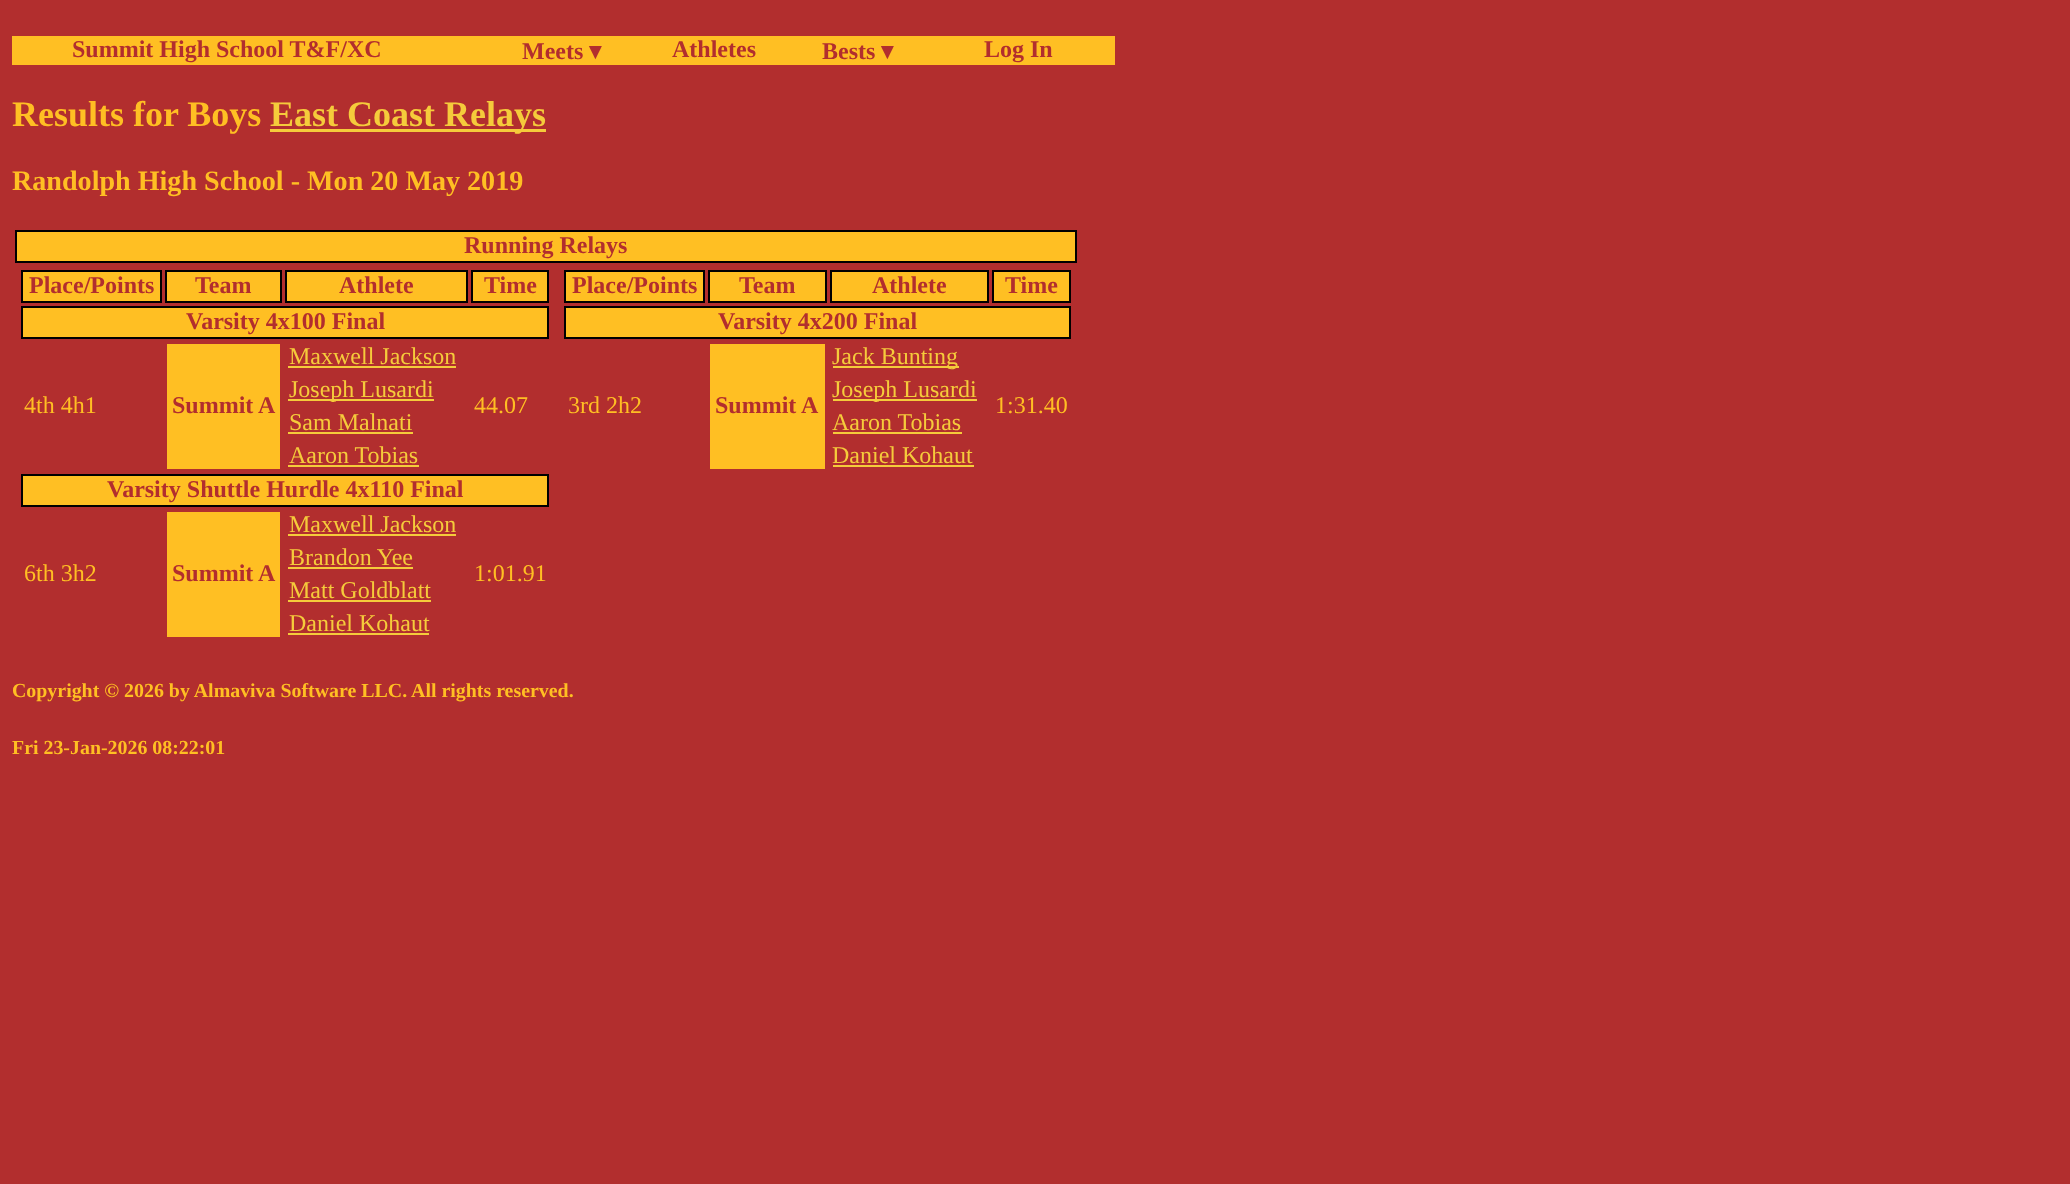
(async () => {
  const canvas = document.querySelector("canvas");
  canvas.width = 2070;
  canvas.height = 1184;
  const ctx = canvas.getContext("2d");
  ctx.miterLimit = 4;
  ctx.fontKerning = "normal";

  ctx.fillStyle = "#b22e2e";
  ctx.fillRect(0, 0, 2070, 1184);
  ctx.fillStyle = "#ffbf23";
  ctx.fillRect(12, 36, 1103, 29);
  ctx.fillStyle = "#f5cb3b";
  ctx.fillRect(270, 129, 276, 3);
  ctx.fillStyle = "#ffbf23";
  ctx.beginPath();
  ctx.rect(16, 231, 1060, 31);
  ctx.fill();
  ctx.strokeStyle = "#000000";
  ctx.lineWidth = 2;
  ctx.stroke();
  ctx.beginPath();
  ctx.rect(22, 271, 139, 31);
  ctx.fill();
  ctx.stroke();
  ctx.beginPath();
  ctx.rect(166, 271, 115, 31);
  ctx.fill();
  ctx.stroke();
  ctx.beginPath();
  ctx.rect(286, 271, 181, 31);
  ctx.fill();
  ctx.stroke();
  ctx.beginPath();
  ctx.rect(472, 271, 76, 31);
  ctx.fill();
  ctx.stroke();
  ctx.beginPath();
  ctx.rect(22, 307, 526, 31);
  ctx.fill();
  ctx.stroke();
  for (const [x, y, w, h, color] of [
    [288, 366, 168, 2, "#f5cb3b"],
    [167, 344, 113, 125, "#ffbf23"],
    [288, 399, 146, 2, "#f5cb3b"],
    [288, 432, 125, 2, "#f5cb3b"],
    [288, 465, 131, 2, "#f5cb3b"],
  ]) {
    ctx.fillStyle = color;
    ctx.fillRect(x, y, w, h);
  }
  ctx.fillStyle = "#ffbf23";
  ctx.beginPath();
  ctx.rect(22, 475, 526, 31);
  ctx.fill();
  ctx.stroke();
  for (const [x, y, w, h, color] of [
    [288, 534, 168, 2, "#f5cb3b"],
    [167, 512, 113, 125, "#ffbf23"],
    [288, 567, 125, 2, "#f5cb3b"],
    [288, 600, 143, 2, "#f5cb3b"],
    [288, 633, 141, 2, "#f5cb3b"],
  ]) {
    ctx.fillStyle = color;
    ctx.fillRect(x, y, w, h);
  }
  ctx.fillStyle = "#ffbf23";
  ctx.beginPath();
  ctx.rect(565, 271, 139, 31);
  ctx.fill();
  ctx.stroke();
  ctx.beginPath();
  ctx.rect(709, 271, 117, 31);
  ctx.fill();
  ctx.stroke();
  ctx.beginPath();
  ctx.rect(831, 271, 157, 31);
  ctx.fill();
  ctx.stroke();
  ctx.beginPath();
  ctx.rect(993, 271, 77, 31);
  ctx.fill();
  ctx.stroke();
  ctx.beginPath();
  ctx.rect(565, 307, 505, 31);
  ctx.fill();
  ctx.stroke();
  for (const [x, y, w, h, color] of [
    [833, 366, 126, 2, "#f5cb3b"],
    [710, 344, 115, 125, "#ffbf23"],
    [833, 399, 144, 2, "#f5cb3b"],
    [833, 432, 129, 2, "#f5cb3b"],
    [833, 465, 141, 2, "#f5cb3b"],
  ]) {
    ctx.fillStyle = color;
    ctx.fillRect(x, y, w, h);
  }
  ctx.font = "bold 24px Liberation Serif";
  ctx.fillStyle = "#b22e2e";
  ctx.fillText("Summit High School T&F/XC", 72, 57);
  ctx.fillText("Meets", 522, 59);
  ctx.font = "bold 24px DejaVu Sans";
  ctx.fillText("▾", 589, 59);
  ctx.font = "bold 24px Liberation Serif";
  ctx.fillText("Athletes", 672, 57);
  ctx.fillText("Bests", 822, 59);
  ctx.font = "bold 24px DejaVu Sans";
  ctx.fillText("▾", 881, 59);
  ctx.font = "bold 24px Liberation Serif";
  ctx.fillText("Log In", 984, 57);
  ctx.font = "bold 36px Liberation Serif";
  ctx.fillStyle = "#ffbf23";
  ctx.fillText("Results for Boys", 12, 126);
  ctx.fillStyle = "#f5cb3b";
  ctx.fillText("East Coast Relays", 270, 126);
  ctx.font = "bold 28.1px Liberation Serif";
  ctx.fillStyle = "#ffbf23";
  ctx.fillText("Randolph High School - Mon 20 May 2019", 12, 190);
  ctx.font = "bold 24px Liberation Serif";
  ctx.fillStyle = "#b22e2e";
  for (const [text, x, y] of [
    ["Running Relays", 464, 253],
    ["Place/Points", 29, 293],
    ["Team", 195, 293],
    ["Athlete", 339, 293],
    ["Time", 484, 293],
    ["Varsity 4x100 Final", 186, 329],
  ]) {
    ctx.fillText(text, x, y);
  }
  ctx.font = "24px Liberation Serif";
  ctx.fillStyle = "#f5cb3b";
  ctx.fillText("Maxwell Jackson", 289, 364);
  ctx.fillStyle = "#ffbf23";
  ctx.fillText("4th 4h1", 24, 413);
  ctx.font = "bold 24px Liberation Serif";
  ctx.fillStyle = "#b22e2e";
  ctx.fillText("Summit A", 172, 413);
  ctx.font = "24px Liberation Serif";
  ctx.fillStyle = "#ffbf23";
  ctx.fillText("44.07", 474, 413);
  ctx.fillStyle = "#f5cb3b";
  for (const [text, x, y] of [
    ["Joseph Lusardi", 289, 397],
    ["Sam Malnati", 289, 430],
    ["Aaron Tobias", 289, 463],
  ]) {
    ctx.fillText(text, x, y);
  }
  ctx.font = "bold 24px Liberation Serif";
  ctx.fillStyle = "#b22e2e";
  ctx.fillText("Varsity Shuttle Hurdle 4x110 Final", 107, 497);
  ctx.font = "24px Liberation Serif";
  ctx.fillStyle = "#f5cb3b";
  ctx.fillText("Maxwell Jackson", 289, 532);
  ctx.fillStyle = "#ffbf23";
  ctx.fillText("6th 3h2", 24, 581);
  ctx.font = "bold 24px Liberation Serif";
  ctx.fillStyle = "#b22e2e";
  ctx.fillText("Summit A", 172, 581);
  ctx.font = "24px Liberation Serif";
  ctx.fillStyle = "#ffbf23";
  ctx.fillText("1:01.91", 474, 581);
  ctx.fillStyle = "#f5cb3b";
  for (const [text, x, y] of [
    ["Brandon Yee", 289, 565],
    ["Matt Goldblatt", 289, 598],
    ["Daniel Kohaut", 289, 631],
  ]) {
    ctx.fillText(text, x, y);
  }
  ctx.font = "bold 24px Liberation Serif";
  ctx.fillStyle = "#b22e2e";
  for (const [text, x, y] of [
    ["Place/Points", 572, 293],
    ["Team", 739, 293],
    ["Athlete", 872, 293],
    ["Time", 1005, 293],
    ["Varsity 4x200 Final", 718, 329],
  ]) {
    ctx.fillText(text, x, y);
  }
  ctx.font = "24px Liberation Serif";
  ctx.fillStyle = "#f5cb3b";
  ctx.fillText("Jack Bunting", 832, 364);
  ctx.fillStyle = "#ffbf23";
  ctx.fillText("3rd 2h2", 568, 413);
  ctx.font = "bold 24px Liberation Serif";
  ctx.fillStyle = "#b22e2e";
  ctx.fillText("Summit A", 715, 413);
  ctx.font = "24px Liberation Serif";
  ctx.fillStyle = "#ffbf23";
  ctx.fillText("1:31.40", 995, 413);
  ctx.fillStyle = "#f5cb3b";
  for (const [text, x, y] of [
    ["Joseph Lusardi", 832, 397],
    ["Aaron Tobias", 832, 430],
    ["Daniel Kohaut", 832, 463],
  ]) {
    ctx.fillText(text, x, y);
  }
  ctx.font = "bold 19.9px Liberation Serif";
  ctx.fillStyle = "#ffbf23";
  ctx.fillText("Copyright © 2026 by Almaviva Software LLC. All rights reserved.", 12, 697);
  ctx.fillText("Fri 23-Jan-2026 08:22:01", 12, 754);
})();
